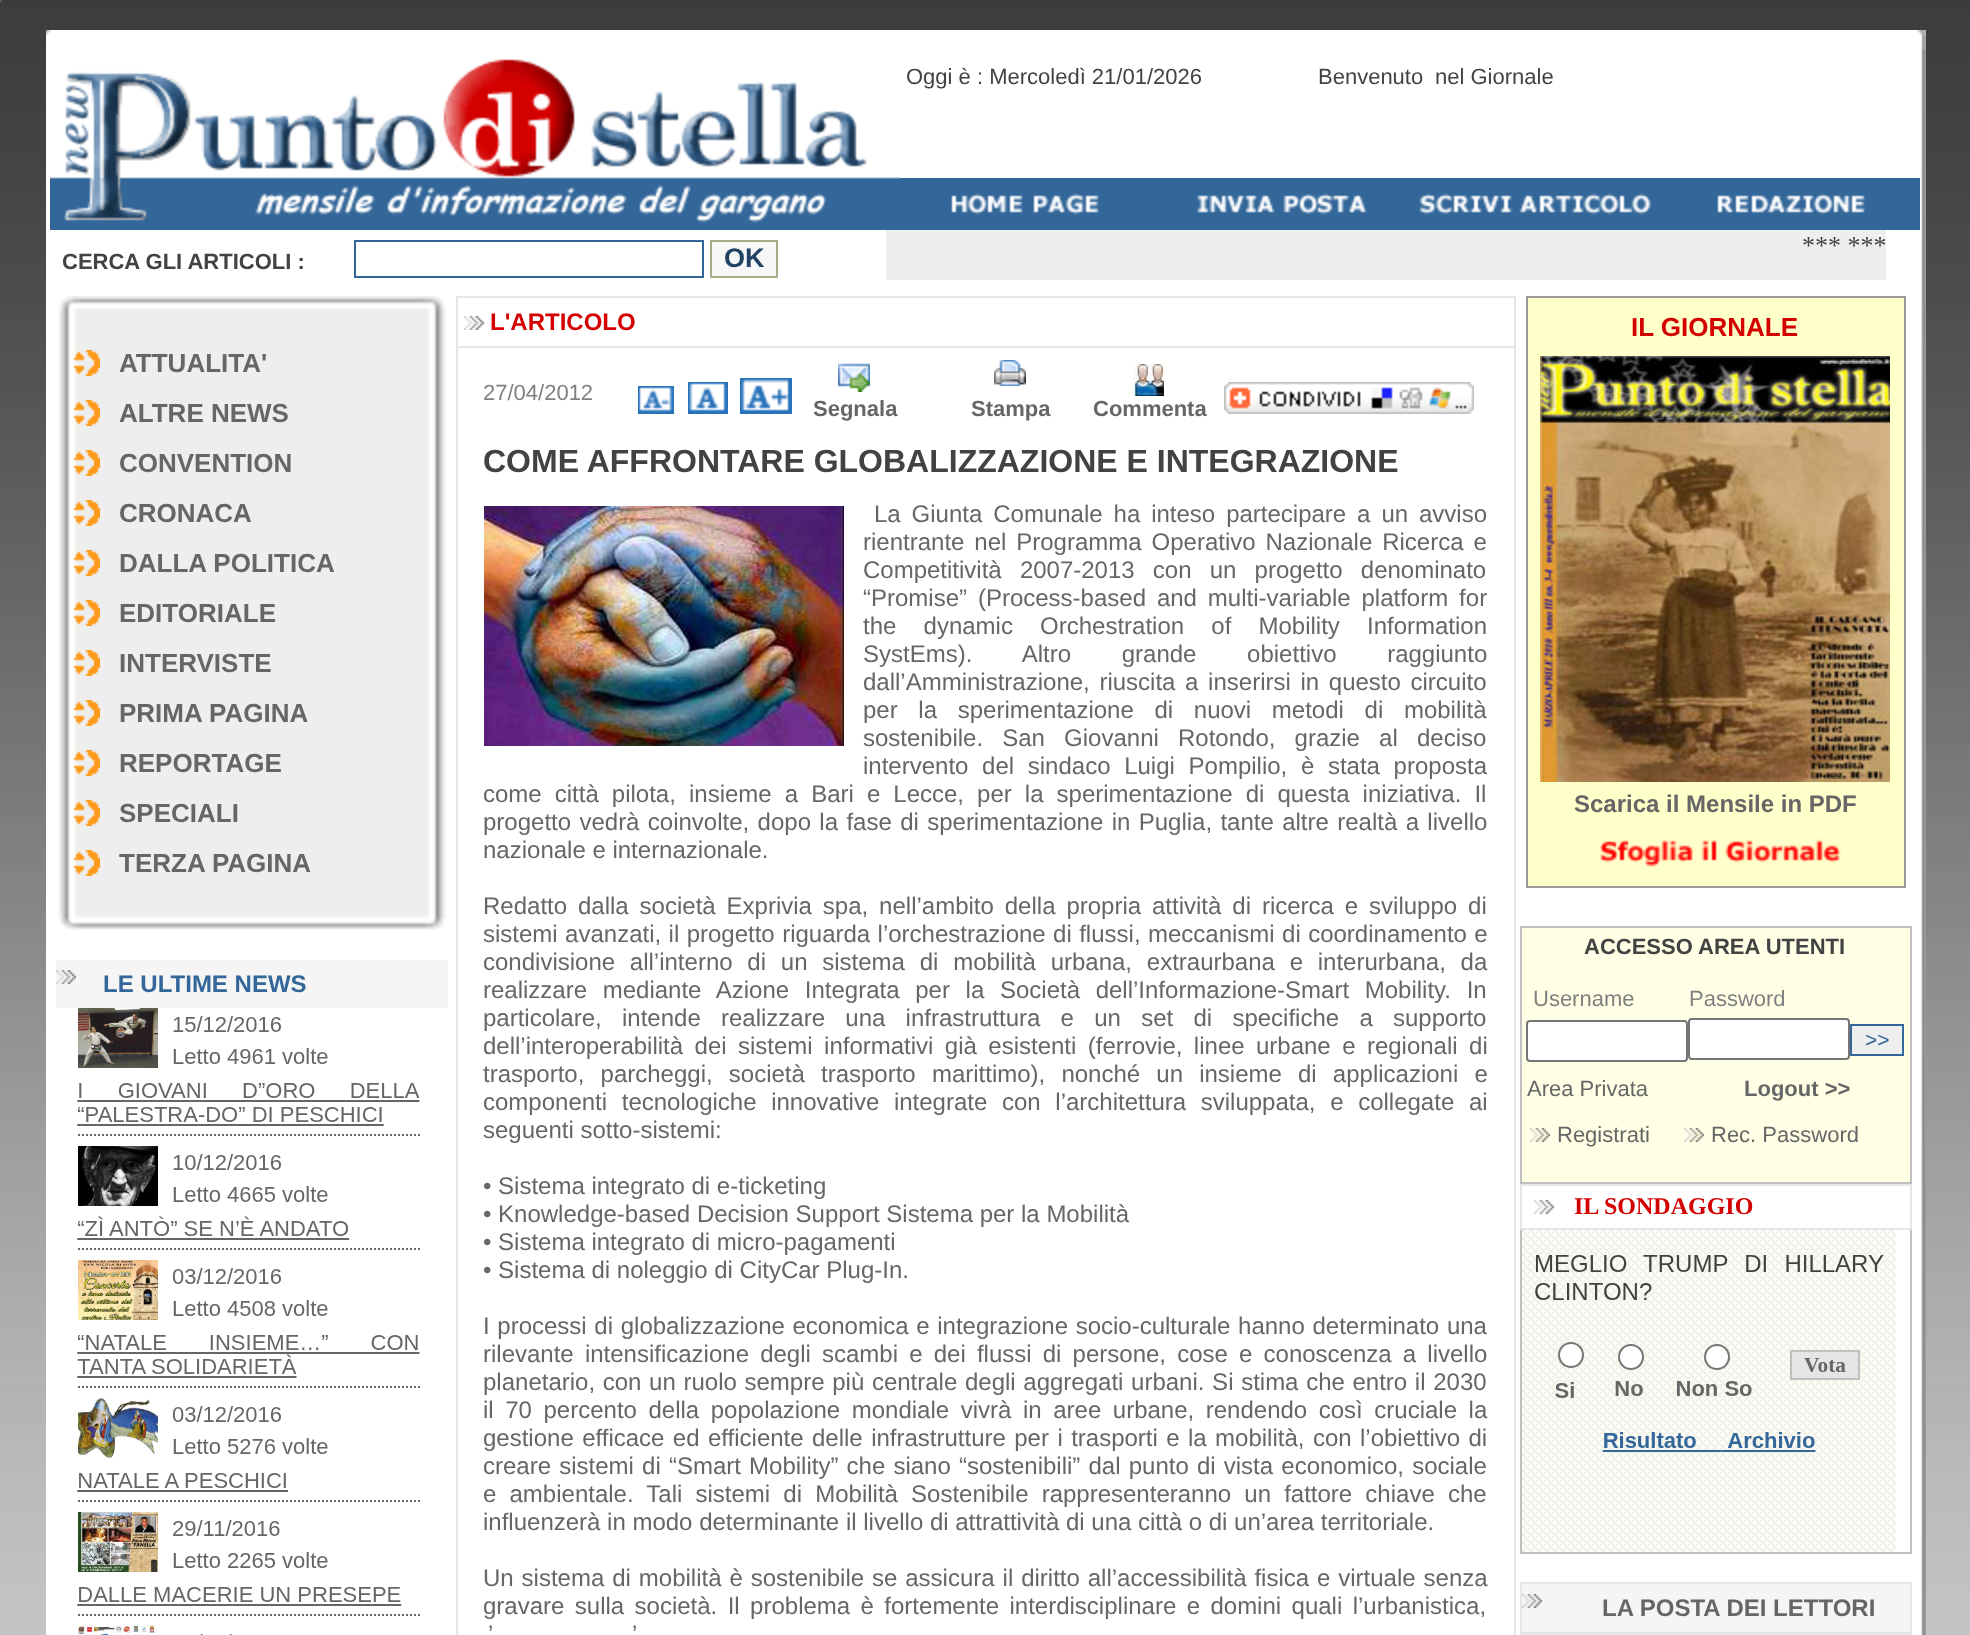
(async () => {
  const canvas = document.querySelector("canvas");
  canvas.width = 1970;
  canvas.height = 1635;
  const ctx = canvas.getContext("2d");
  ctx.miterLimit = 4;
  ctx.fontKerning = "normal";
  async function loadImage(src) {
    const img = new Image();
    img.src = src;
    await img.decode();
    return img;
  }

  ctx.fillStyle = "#ffffff";
  ctx.fillRect(0, 0, 1970, 1635);
  ctx.drawImage(await loadImage("img/1.png"), 0, 0, 1970, 1635);
  ctx.drawImage(await loadImage("img/2.png"), 0, 0, 2, 2);
  ctx.fillRect(46, 50, 1875, 1585);
  ctx.drawImage(await loadImage("img/3.png"), 46, 30, 1880, 20);
  ctx.drawImage(await loadImage("img/4.png"), 1921, 50, 5, 246);
  ctx.drawImage(await loadImage("img/5.png"), 50, 59, 850, 171);
  ctx.fillStyle = "#336699";
  ctx.fillRect(900, 178, 1020, 52);
  ctx.drawImage(await loadImage("img/6.png"), 951, 193, 148, 22);
  ctx.drawImage(await loadImage("img/7.png"), 1197, 193, 170, 22);
  ctx.drawImage(await loadImage("img/8.png"), 1419, 193, 232, 22);
  ctx.drawImage(await loadImage("img/9.png"), 1717, 193, 148, 22);
  ctx.fillStyle = "#eeeeee";
  ctx.fillRect(886, 230, 1000, 50);
  ctx.strokeStyle = "#336699";
  ctx.lineWidth = 2;
  ctx.strokeRect(355, 241, 348, 36);
  ctx.fillStyle = "#f7f7f7";
  ctx.beginPath();
  ctx.rect(711, 241, 66, 36);
  ctx.fill();
  ctx.strokeStyle = "#a7ab88";
  ctx.stroke();
  ctx.drawImage(await loadImage("img/10.png"), 1921, 296, 5, 1339);
  ctx.drawImage(await loadImage("img/11.png"), 58, 296, 388, 14);
  ctx.drawImage(await loadImage("img/12.png"), 58, 310, 388, 606);
  ctx.drawImage(await loadImage("img/13.png"), 74, 350, 26, 26);
  ctx.drawImage(await loadImage("img/13.png"), 74, 400, 26, 26);
  ctx.drawImage(await loadImage("img/13.png"), 74, 450, 26, 26);
  ctx.drawImage(await loadImage("img/13.png"), 74, 500, 26, 26);
  ctx.drawImage(await loadImage("img/13.png"), 74, 550, 26, 26);
  ctx.drawImage(await loadImage("img/13.png"), 74, 600, 26, 26);
  ctx.drawImage(await loadImage("img/13.png"), 74, 650, 26, 26);
  ctx.drawImage(await loadImage("img/13.png"), 74, 700, 26, 26);
  ctx.drawImage(await loadImage("img/13.png"), 74, 750, 26, 26);
  ctx.drawImage(await loadImage("img/13.png"), 74, 800, 26, 26);
  ctx.drawImage(await loadImage("img/13.png"), 74, 850, 26, 26);
  ctx.drawImage(await loadImage("img/14.png"), 58, 916, 388, 14);
  ctx.fillStyle = "#f5f5f5";
  ctx.fillRect(56, 960, 392, 48);
  ctx.drawImage(await loadImage("img/15.png"), 56, 970, 20, 14);
  ctx.drawImage(await loadImage("img/16.png"), 77, 1008, 343, 627);
  for (const [x, y, w, h, color] of [
    [1514, 296, 2, 1339, "#e6e6e6"],
    [456, 296, 2, 1339, "#e6e6e6"],
    [458, 296, 1056, 2, "#e6e6e6"],
    [458, 346, 1056, 2, "#e6e6e6"],
  ]) {
    ctx.fillStyle = color;
    ctx.fillRect(x, y, w, h);
  }
  ctx.drawImage(await loadImage("img/17.png"), 464, 316, 20, 14);
  ctx.drawImage(await loadImage("img/18.png"), 638, 386, 36, 28);
  ctx.drawImage(await loadImage("img/19.png"), 688, 382, 40, 32);
  ctx.drawImage(await loadImage("img/20.png"), 740, 378, 52, 36);
  ctx.drawImage(await loadImage("img/21.png"), 1224, 382, 250, 32);
  ctx.drawImage(await loadImage("img/22.png"), 838, 363, 32, 29);
  ctx.drawImage(await loadImage("img/23.png"), 994, 360, 32, 26);
  ctx.drawImage(await loadImage("img/24.png"), 1134, 364, 30, 32);
  ctx.drawImage(await loadImage("img/25.png"), 484, 506, 360, 240);
  ctx.fillStyle = "#ffffca";
  ctx.beginPath();
  ctx.rect(1527, 297, 378, 590);
  ctx.fill();
  ctx.strokeStyle = "#999999";
  ctx.stroke();
  ctx.drawImage(await loadImage("img/26.png"), 1540, 356, 350, 426);
  ctx.drawImage(await loadImage("img/27.png"), 1599, 839, 242, 28);
  ctx.fillStyle = "#ffffe6";
  ctx.beginPath();
  ctx.rect(1521, 927, 390, 256);
  ctx.fill();
  ctx.strokeStyle = "#c0c0c0";
  ctx.stroke();
  ctx.fillStyle = "#ffffff";
  ctx.beginPath();
  ctx.roundRect(1527, 1021, 160, 40, 3);
  ctx.fill();
  ctx.strokeStyle = "#767676";
  ctx.stroke();
  ctx.beginPath();
  ctx.roundRect(1689, 1019, 160, 40, 3);
  ctx.fill();
  ctx.stroke();
  ctx.fillStyle = "#eeeeee";
  ctx.beginPath();
  ctx.rect(1851, 1025, 52, 30);
  ctx.fill();
  ctx.strokeStyle = "#336699";
  ctx.stroke();
  ctx.drawImage(await loadImage("img/28.png"), 1530, 1128, 20, 14);
  ctx.drawImage(await loadImage("img/28.png"), 1684, 1128, 20, 14);
  ctx.strokeStyle = "#e6e6e6";
  ctx.strokeRect(1521, 1185, 390, 44);
  ctx.drawImage(await loadImage("img/17.png"), 1534, 1200, 20, 14);
  for (const [x, y, w, h, color] of [
    [1910, 1230, 2, 324, "#c0c0c0"],
    [1520, 1552, 392, 2, "#c0c0c0"],
    [1520, 1230, 2, 324, "#c0c0c0"],
  ]) {
    ctx.fillStyle = color;
    ctx.fillRect(x, y, w, h);
  }
  ctx.drawImage(await loadImage("img/29.png"), 1522, 1230, 374, 322);
  ctx.strokeRect(1521, 1583, 390, 50);
  ctx.fillStyle = "#f5f5f5";
  ctx.fillRect(1522, 1584, 388, 48);
  ctx.drawImage(await loadImage("img/15.png"), 1522, 1594, 20, 14);
  ctx.strokeRect(1521, 1635, 390, 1);
  ctx.font = "22px Liberation Sans";
  ctx.fillStyle = "#424242";
  for (const [text, x, y] of [
    ["Oggi è : Mercoledì 21/01/2026", 906, 84],
    ["Benvenuto", 1318, 84],
    ["nel Giornale", 1435, 84],
  ]) {
    ctx.fillText(text, x, y);
  }
  ctx.font = "26px Liberation Serif";
  ctx.fillText("*** ***", 1802, 254);
  ctx.font = "bold 22px Liberation Sans";
  ctx.fillText("CERCA GLI ARTICOLI :", 62, 269);
  ctx.font = "bold 27px Liberation Sans";
  ctx.fillStyle = "#214263";
  ctx.fillText("OK", 724, 267);
  ctx.font = "bold 26px Liberation Sans";
  ctx.fillStyle = "#666666";
  for (const [text, x, y] of [
    ["ATTUALITA'", 119, 372],
    ["ALTRE NEWS", 119, 422],
    ["CONVENTION", 119, 472],
    ["CRONACA", 119, 522],
    ["DALLA POLITICA", 119, 572],
    ["EDITORIALE", 119, 622],
    ["INTERVISTE", 119, 672],
    ["PRIMA PAGINA", 119, 722],
    ["REPORTAGE", 119, 772],
    ["SPECIALI", 119, 822],
    ["TERZA PAGINA", 119, 872],
  ]) {
    ctx.fillText(text, x, y);
  }
  ctx.font = "bold 24px Liberation Sans";
  ctx.fillStyle = "#336699";
  ctx.fillText("LE ULTIME NEWS", 103, 992);
  ctx.fillStyle = "#d40000";
  ctx.fillText("L'ARTICOLO", 490, 330);
  ctx.font = "22px Liberation Sans";
  ctx.fillStyle = "#808080";
  ctx.fillText("27/04/2012", 483, 400);
  ctx.font = "bold 22px Liberation Sans";
  ctx.fillStyle = "#666666";
  for (const [text, x, y] of [
    ["Segnala", 813, 416],
    ["Stampa", 971, 416],
    ["Commenta", 1093, 416],
  ]) {
    ctx.fillText(text, x, y);
  }
  ctx.font = "bold 32px Liberation Sans";
  ctx.fillStyle = "#424242";
  ctx.fillText("COME AFFRONTARE GLOBALIZZAZIONE E INTEGRAZIONE", 483, 472);
  ctx.wordSpacing = "4.25px";
  ctx.font = "24px Liberation Sans";
  ctx.fillStyle = "#666666";
  ctx.fillText("La Giunta Comunale ha inteso partecipare a un avviso", 874, 522);
  ctx.wordSpacing = "3.25px";
  ctx.fillText("rientrante nel Programma Operativo Nazionale Ricerca e", 863, 550);
  ctx.wordSpacing = "11.5px";
  ctx.fillText("Competitività 2007-2013 con un progetto denominato", 863, 578);
  ctx.wordSpacing = "4.25px";
  ctx.fillText("“Promise” (Process-based and multi-variable platform for", 863, 606);
  ctx.wordSpacing = "20.5px";
  ctx.fillText("the dynamic Orchestration of Mobility Information", 863, 634);
  ctx.wordSpacing = "44px";
  ctx.fillText("SystEms). Altro grande obiettivo raggiunto", 863, 662);
  ctx.wordSpacing = "3px";
  ctx.fillText("dall’Amministrazione, riuscita a inserirsi in questo circuito", 863, 690);
  ctx.wordSpacing = "14px";
  ctx.fillText("per la sperimentazione di nuovi metodi di mobilità", 863, 718);
  ctx.wordSpacing = "12.5px";
  ctx.fillText("sostenibile. San Giovanni Rotondo, grazie al deciso", 863, 746);
  ctx.wordSpacing = "7px";
  ctx.fillText("intervento del sindaco Luigi Pompilio, è stata proposta", 863, 774);
  ctx.wordSpacing = "6.4px";
  ctx.fillText("come città pilota, insieme a Bari e Lecce, per la sperimentazione di questa iniziativa. Il", 483, 802);
  ctx.wordSpacing = "1.7px";
  ctx.fillText("progetto vedrà coinvolte, dopo la fase di sperimentazione in Puglia, tante altre realtà a livello", 483, 830);
  ctx.wordSpacing = "0px";
  ctx.fillText("nazionale e internazionale.", 483, 858);
  ctx.wordSpacing = "4.25px";
  ctx.fillText("Redatto dalla società Exprivia spa, nell’ambito della propria attività di ricerca e sviluppo di", 483, 914);
  ctx.wordSpacing = "0.75px";
  ctx.fillText("sistemi avanzati, il progetto riguarda l’orchestrazione di flussi, meccanismi di coordinamento e", 483, 942);
  ctx.wordSpacing = "8.1px";
  ctx.fillText("condivisione all’interno di un sistema di mobilità urbana, extraurbana e interurbana, da", 483, 970);
  ctx.wordSpacing = "9px";
  ctx.fillText("realizzare mediante Azione Integrata per la Società dell’Informazione-Smart Mobility. In", 483, 998);
  ctx.wordSpacing = "13.6px";
  ctx.fillText("particolare, intende realizzare una infrastruttura e un set di specifiche a supporto", 483, 1026);
  ctx.wordSpacing = "4.75px";
  ctx.fillText("dell’interoperabilità dei sistemi informativi già esistenti (ferrovie, linee urbane e regionali di", 483, 1054);
  ctx.wordSpacing = "9.5px";
  ctx.fillText("trasporto, parcheggi, società trasporto marittimo), nonché un insieme di applicazioni e", 483, 1082);
  ctx.wordSpacing = "8px";
  ctx.fillText("componenti tecnologiche innovative integrate con l’architettura sviluppata, e collegate ai", 483, 1110);
  ctx.wordSpacing = "0px";
  for (const [text, x, y] of [
    ["seguenti sotto-sistemi:", 483, 1138],
    ["• Sistema integrato di e-ticketing", 483, 1194],
    ["• Knowledge-based Decision Support Sistema per la Mobilità", 483, 1222],
    ["• Sistema integrato di micro-pagamenti", 483, 1250],
    ["• Sistema di noleggio di CityCar Plug-In.", 483, 1278],
  ]) {
    ctx.fillText(text, x, y);
  }
  ctx.wordSpacing = "1px";
  ctx.fillText("I processi di globalizzazione economica e integrazione socio-culturale hanno determinato una", 483, 1334);
  ctx.wordSpacing = "4.5px";
  ctx.fillText("rilevante intensificazione degli scambi e dei flussi di persone, cose e conoscenza a livello", 483, 1362);
  ctx.wordSpacing = "1px";
  ctx.fillText("planetario, con un ruolo sempre più centrale degli aggregati urbani. Si stima che entro il 2030", 483, 1390);
  ctx.wordSpacing = "4.9px";
  ctx.fillText("il 70 percento della popolazione mondiale vivrà in aree urbane, rendendo così cruciale la", 483, 1418);
  ctx.wordSpacing = "1.75px";
  ctx.fillText("gestione efficace ed efficiente delle infrastrutture per i trasporti e la mobilità, con l’obiettivo di", 483, 1446);
  ctx.wordSpacing = "1.5px";
  ctx.fillText("creare sistemi di “Smart Mobility” che siano “sostenibili” dal punto di vista economico, sociale", 483, 1474);
  ctx.wordSpacing = "6.5px";
  ctx.fillText("e ambientale. Tali sistemi di Mobilità Sostenibile rappresenteranno un fattore chiave che", 483, 1502);
  ctx.wordSpacing = "0px";
  ctx.fillText("influenzerà in modo determinante il livello di attrattività di una città o di un’area territoriale.", 483, 1530);
  ctx.wordSpacing = "1.25px";
  ctx.fillText("Un sistema di mobilità è sostenibile se assicura il diritto all’accessibilità fisica e virtuale senza", 483, 1586);
  ctx.wordSpacing = "3.75px";
  ctx.fillText("gravare sulla società. Il problema è fortemente interdisciplinare e domini quali l’urbanistica,", 483, 1614);
  ctx.wordSpacing = "8px";
  ctx.fillText("’", 488, 1642);
  ctx.fillText("’", 632, 1642);
  ctx.wordSpacing = "0px";
  ctx.font = "bold 26px Liberation Sans";
  ctx.fillStyle = "#d40000";
  ctx.fillText("IL GIORNALE", 1631, 336);
  ctx.font = "bold 24px Liberation Sans";
  ctx.fillStyle = "#666666";
  ctx.fillText("Scarica il Mensile in PDF", 1574, 812);
  ctx.font = "bold 22px Liberation Sans";
  ctx.fillStyle = "#424242";
  ctx.fillText("ACCESSO AREA UTENTI", 1584, 954);
  ctx.font = "22px Liberation Sans";
  ctx.fillStyle = "#808080";
  ctx.fillText("Username", 1533, 1006);
  ctx.fillText("Password", 1689, 1006);
  ctx.font = "21px Liberation Sans";
  ctx.fillStyle = "#336699";
  ctx.fillText(">>", 1865, 1047);
  ctx.font = "22px Liberation Sans";
  ctx.fillStyle = "#666666";
  ctx.fillText("Area Privata", 1527, 1096);
  ctx.font = "bold 22px Liberation Sans";
  ctx.fillText("Logout >>", 1744, 1096);
  ctx.font = "22px Liberation Sans";
  ctx.fillText("Registrati", 1557, 1142);
  ctx.fillText("Rec. Password", 1711, 1142);
  ctx.font = "bold 24px Liberation Serif";
  ctx.fillStyle = "#d40000";
  ctx.fillText("IL SONDAGGIO", 1574, 1214);
  ctx.font = "bold 24px Liberation Sans";
  ctx.fillStyle = "#666666";
  ctx.fillText("LA POSTA DEI LETTORI", 1602, 1616);
})();
